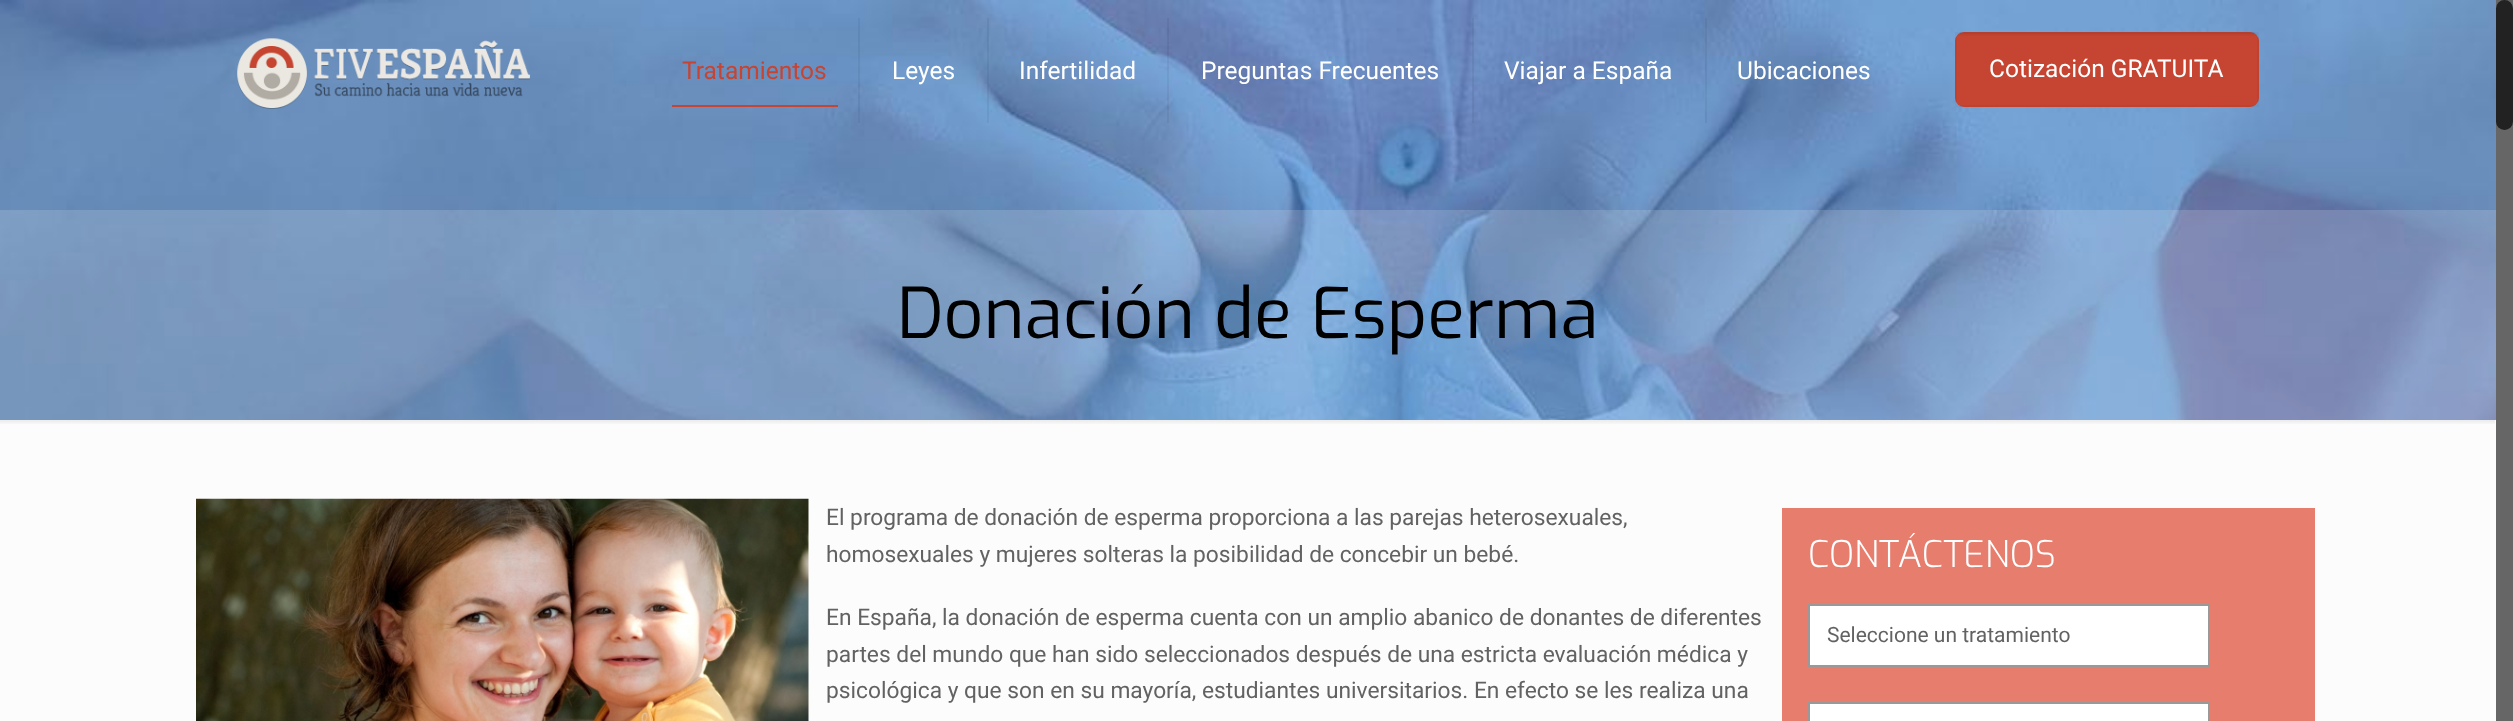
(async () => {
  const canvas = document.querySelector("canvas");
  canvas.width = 2513;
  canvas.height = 721;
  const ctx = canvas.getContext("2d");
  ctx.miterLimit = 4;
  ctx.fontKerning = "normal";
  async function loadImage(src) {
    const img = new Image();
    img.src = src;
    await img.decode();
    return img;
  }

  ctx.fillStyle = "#fcfcfc";
  ctx.fillRect(0, 0, 2513, 721);
  ctx.drawImage(await loadImage("img/1.png"), 0, 0, 2496, 420);
  ctx.drawImage(await loadImage("img/2.png"), 237, 38, 294, 71);
  for (const [x, y, w, h, color] of [
    [858, 18, 2, 105, "rgba(0, 0, 0, 0.05)"],
    [672, 105, 166, 2, "#c64532"],
    [987, 18, 2, 105, "rgba(0, 0, 0, 0.05)"],
    [1167, 18, 2, 105, "rgba(0, 0, 0, 0.05)"],
    [1472, 18, 2, 105, "rgba(0, 0, 0, 0.05)"],
    [1705, 18, 2, 105, "rgba(0, 0, 0, 0.05)"],
  ]) {
    ctx.fillStyle = color;
    ctx.fillRect(x, y, w, h);
  }
  ctx.fillStyle = "#c64532";
  ctx.beginPath();
  ctx.roundRect(1955, 32, 304, 75, 9);
  ctx.fill();
  ctx.drawImage(await loadImage("img/3.png"), 1957, 32, 300, 4);
  ctx.strokeStyle = "rgba(0, 0, 0, 0.03)";
  ctx.lineWidth = 2;
  ctx.strokeRect(1956, 33, 302, 73);
  ctx.fillStyle = "rgba(247, 247, 247, 0.16)";
  ctx.fillRect(0, 210, 2496, 210);
  ctx.drawImage(await loadImage("img/4.png"), 0, 420, 2495, 4);
  ctx.drawImage(await loadImage("img/5.png"), 196, 498, 613, 223);
  ctx.fillStyle = "#e67d6d";
  ctx.fillRect(1782, 508, 533, 213);
  ctx.fillStyle = "#ffffff";
  ctx.beginPath();
  ctx.rect(1809, 605, 400, 61);
  ctx.fill();
  ctx.strokeStyle = "#999999";
  ctx.stroke();
  ctx.beginPath();
  ctx.rect(1809, 703, 400, 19);
  ctx.fill();
  ctx.stroke();
  ctx.fillStyle = "#666666";
  ctx.fillRect(2496, 0, 17, 721);
  ctx.fillStyle = "#222222";
  ctx.beginPath();
  ctx.roundRect(2496, 0, 17, 130, 8.5);
  ctx.fill();
  ctx.font = "24.5px Roboto";
  ctx.fillStyle = "#c64532";
  ctx.fillText("Tratamientos", 682, 79);
  ctx.fillStyle = "#ffffff";
  for (const [text, x, y] of [
    ["Leyes", 892, 79],
    ["Infertilidad", 1019, 79],
    ["Preguntas Frecuentes", 1201, 79],
    ["Viajar a España", 1504, 79],
    ["Ubicaciones", 1737, 79],
    ["Cotización GRATUITA", 1989, 77],
  ]) {
    ctx.fillText(text, x, y);
  }
  ctx.font = "70px Exo";
  ctx.fillStyle = "#000000";
  ctx.fillText("Donación de Esperma", 897, 338);
  ctx.font = "22.75px Roboto";
  ctx.fillStyle = "#626262";
  for (const [text, x, y] of [
    ["El programa de donación de esperma proporciona a las parejas heterosexuales,", 826, 525],
    ["homosexuales y mujeres solteras la posibilidad de concebir un bebé.", 826, 562],
    ["En España, la donación de esperma cuenta con un amplio abanico de donantes de diferentes", 826, 625],
    ["partes del mundo que han sido seleccionados después de una estricta evaluación médica y", 826, 662],
    ["psicológica y que son en su mayoría, estudiantes universitarios. En efecto se les realiza una", 826, 698],
  ]) {
    ctx.fillText(text, x, y);
  }
  ctx.font = "300 36.75px Exo";
  ctx.fillStyle = "#ffffff";
  ctx.fillText("CONTÁCTENOS", 1808, 567);
  ctx.font = "21px Roboto";
  ctx.fillStyle = "#626262";
  ctx.fillText("Seleccione un tratamiento", 1827, 642);
})();
